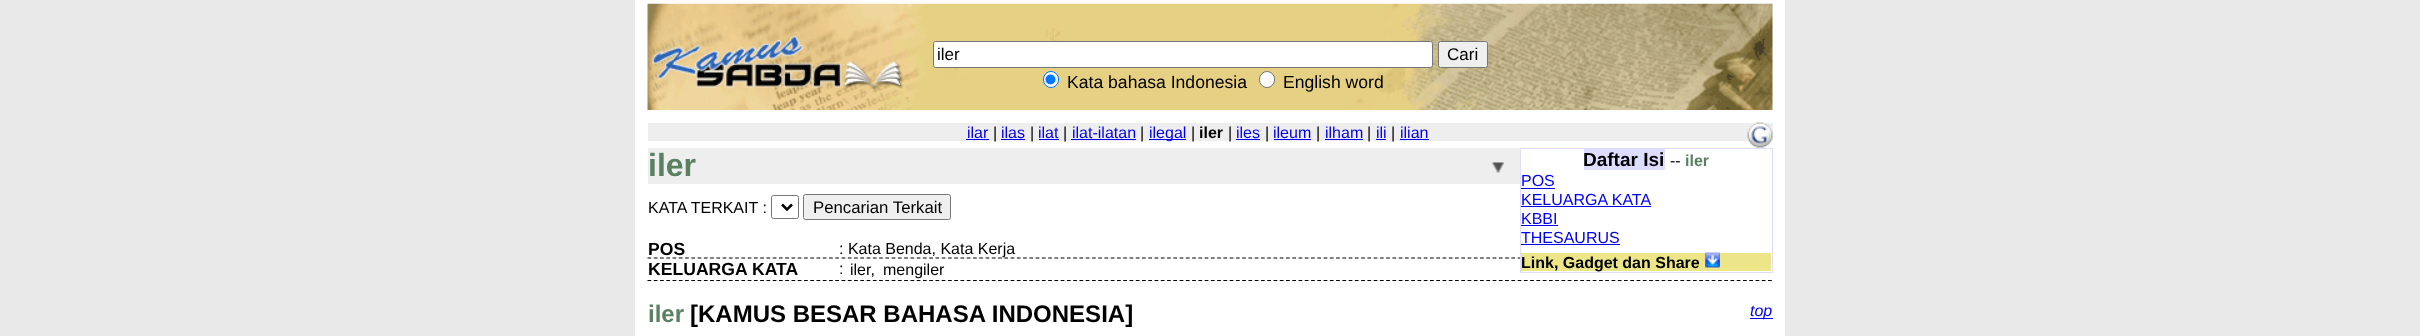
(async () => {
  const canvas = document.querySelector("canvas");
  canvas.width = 2420;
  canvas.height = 336;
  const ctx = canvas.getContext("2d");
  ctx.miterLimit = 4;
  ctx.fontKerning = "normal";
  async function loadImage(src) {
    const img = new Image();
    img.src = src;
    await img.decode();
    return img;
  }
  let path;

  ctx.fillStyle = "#e9e9e9";
  ctx.fillRect(0, 0, 2420, 336);
  ctx.fillStyle = "#ffffff";
  ctx.fillRect(635, 0, 1150, 336);
  ctx.drawImage(await loadImage("img/1.png"), 647, 3, 1126, 107);
  ctx.beginPath();
  ctx.roundRect(933.5, 41.5, 499, 26, 2);
  ctx.fill();
  ctx.strokeStyle = "#767676";
  ctx.stroke();
  ctx.fillStyle = "#efefef";
  ctx.beginPath();
  ctx.roundRect(1438.5, 41.5, 49, 26, 2);
  ctx.fill();
  ctx.stroke();
  ctx.fillStyle = "#ffffff";
  ctx.beginPath();
  ctx.roundRect(1043.5, 71.5, 15, 16, 7.5);
  ctx.fill();
  ctx.strokeStyle = "#0075ff";
  ctx.stroke();
  ctx.fillStyle = "#0075ff";
  ctx.beginPath();
  ctx.arc(1050.5, 79.5, 5, 0, Math.PI * 2);
  ctx.fill();
  ctx.fillStyle = "#ffffff";
  ctx.beginPath();
  ctx.roundRect(1259.5, 71.5, 15, 16, 7.5);
  ctx.fill();
  ctx.strokeStyle = "#767676";
  ctx.stroke();
  for (const [x, y, w, h, color] of [
    [648, 123, 1125, 18, "#eeeeee"],
    [966, 139, 23, 1, "#0000ee"],
    [1001, 139, 24, 1, "#0000ee"],
    [1039, 139, 20, 1, "#0000ee"],
    [1071, 139, 65, 1, "#0000ee"],
    [1149, 139, 37, 1, "#0000ee"],
    [1236, 139, 24, 1, "#0000ee"],
    [1274, 139, 37, 1, "#0000ee"],
    [1325, 139, 38, 1, "#0000ee"],
    [1376, 139, 10, 1, "#0000ee"],
    [1400, 139, 29, 1, "#0000ee"],
  ]) {
    ctx.fillStyle = color;
    ctx.fillRect(x, y, w, h);
  }
  ctx.drawImage(await loadImage("img/2.png"), 1747, 122, 26, 26);
  ctx.fillStyle = "#eeeeee";
  ctx.fillRect(648, 148, 872, 36);
  ctx.drawImage(await loadImage("img/3.png"), 1492, 162, 12, 11);
  path = new Path2D("M647.5 258H1772.5");
  ctx.strokeStyle = "#000000";
  ctx.lineWidth = 1.2;
  ctx.setLineDash([3.75, 2.51]);
  ctx.stroke(path);
  ctx.fillStyle = "#ffffff";
  ctx.fillRect(1521, 257, 251, 2);
  ctx.strokeStyle = "#ddddff";
  ctx.lineWidth = 1;
  ctx.setLineDash([]);
  ctx.strokeRect(1520.5, 148.5, 252, 124);
  for (const [x, y, w, h, color] of [
    [1584, 149, 81, 21, "#ddddff"],
    [1521, 188, 34, 1, "#0000ee"],
    [1521, 206, 130, 1, "#0000ee"],
    [1521, 225, 37, 1, "#0000ee"],
    [1521, 244, 99, 1, "#0000ee"],
    [1521, 253, 250, 18, "#ede689"],
  ]) {
    ctx.fillStyle = color;
    ctx.fillRect(x, y, w, h);
  }
  ctx.drawImage(await loadImage("img/4.png"), 1705, 252, 15, 16);
  ctx.beginPath();
  ctx.roundRect(771.5, 195.5, 27, 23, 2);
  ctx.strokeStyle = "#767676";
  ctx.stroke();
  path = new Path2D("M782 204.5L787 209.5L792 204.5");
  ctx.strokeStyle = "#000000";
  ctx.lineWidth = 2.5;
  ctx.stroke(path);
  ctx.fillStyle = "#efefef";
  ctx.beginPath();
  ctx.roundRect(803.5, 194.5, 147, 25, 2);
  ctx.fill();
  ctx.strokeStyle = "#767676";
  ctx.lineWidth = 1;
  ctx.stroke();
  path = new Path2D("M647.5 280.5H1772.5");
  ctx.strokeStyle = "#000000";
  ctx.lineWidth = 1.2;
  ctx.setLineDash([3.75, 2.51]);
  ctx.stroke(path);
  ctx.fillStyle = "#0000ee";
  ctx.fillRect(1750, 318, 23, 1);
  ctx.font = "17px Liberation Sans";
  ctx.fillStyle = "#000000";
  ctx.fillText("iler", 937, 60);
  ctx.fillText("Cari", 1447, 60);
  ctx.font = "17.6px Liberation Sans";
  ctx.fillText("Kata bahasa Indonesia", 1067, 88);
  ctx.fillText("English word", 1283, 88);
  ctx.font = "16px Liberation Sans";
  ctx.fillStyle = "#0000ee";
  ctx.fillText("ilar", 967, 138);
  ctx.fillStyle = "#000000";
  ctx.fillText("|", 993, 138);
  ctx.fillStyle = "#0000ee";
  ctx.fillText("ilas", 1001, 138);
  ctx.fillStyle = "#000000";
  ctx.fillText("|", 1030, 138);
  ctx.fillStyle = "#0000ee";
  ctx.fillText("ilat", 1038, 138);
  ctx.fillStyle = "#000000";
  ctx.fillText("|", 1063, 138);
  ctx.fillStyle = "#0000ee";
  ctx.fillText("ilat-ilatan", 1072, 138);
  ctx.fillStyle = "#000000";
  ctx.fillText("|", 1140, 138);
  ctx.fillStyle = "#0000ee";
  ctx.fillText("ilegal", 1149, 138);
  ctx.fillStyle = "#000000";
  ctx.fillText("|", 1191, 138);
  ctx.font = "bold 16px Liberation Sans";
  ctx.fillText("iler", 1199, 138);
  ctx.font = "16px Liberation Sans";
  ctx.fillText("|", 1228, 138);
  ctx.fillStyle = "#0000ee";
  ctx.fillText("iles", 1236, 138);
  ctx.fillStyle = "#000000";
  ctx.fillText("|", 1265, 138);
  ctx.fillStyle = "#0000ee";
  ctx.fillText("ileum", 1273, 138);
  ctx.fillStyle = "#000000";
  ctx.fillText("|", 1316, 138);
  ctx.fillStyle = "#0000ee";
  ctx.fillText("ilham", 1325, 138);
  ctx.fillStyle = "#000000";
  ctx.fillText("|", 1367, 138);
  ctx.fillStyle = "#0000ee";
  ctx.fillText("ili", 1376, 138);
  ctx.fillStyle = "#000000";
  ctx.fillText("|", 1391, 138);
  ctx.fillStyle = "#0000ee";
  ctx.fillText("ilian", 1400, 138);
  ctx.font = "bold 32px Liberation Sans";
  ctx.fillStyle = "#598060";
  ctx.fillText("iler", 648, 176);
  ctx.font = "bold 19px Liberation Sans";
  ctx.fillStyle = "#000000";
  ctx.fillText("Daftar Isi", 1583, 166);
  ctx.font = "16px Liberation Sans";
  ctx.fillText("--", 1670, 166);
  ctx.font = "bold 16px Liberation Sans";
  ctx.fillStyle = "#598060";
  ctx.fillText("iler", 1685, 166);
  ctx.font = "16px Liberation Sans";
  ctx.fillStyle = "#0000ee";
  for (const [text, x, y] of [
    ["POS", 1521, 186],
    ["KELUARGA KATA", 1521, 205],
    ["KBBI", 1521, 224],
    ["THESAURUS", 1521, 243],
  ]) {
    ctx.fillText(text, x, y);
  }
  ctx.font = "bold 16px Liberation Sans";
  ctx.fillStyle = "#000000";
  ctx.fillText("Link, Gadget dan Share", 1521, 268);
  ctx.font = "16px Liberation Sans";
  ctx.fillText("KATA TERKAIT :", 648, 213);
  ctx.font = "16.75px Liberation Sans";
  ctx.fillText("Pencarian Terkait", 813, 213);
  ctx.font = "bold 17.6px Liberation Sans";
  ctx.fillText("POS", 648, 255);
  ctx.font = "16px Liberation Sans";
  ctx.fillText(": Kata Benda, Kata Kerja", 839, 254);
  ctx.font = "bold 17.6px Liberation Sans";
  ctx.fillText("KELUARGA KATA", 648, 275);
  ctx.font = "16px Liberation Sans";
  for (const [text, x, y] of [
    [":", 839, 274],
    ["iler,", 850, 275],
    ["mengiler", 883, 275],
  ]) {
    ctx.fillText(text, x, y);
  }
  ctx.font = "bold 24px Liberation Sans";
  ctx.fillStyle = "#598060";
  ctx.fillText("iler", 648, 322);
  ctx.fillStyle = "#000000";
  ctx.fillText("[KAMUS BESAR BAHASA INDONESIA]", 690, 322);
  ctx.font = "italic 16px Liberation Sans";
  ctx.fillStyle = "#0000ee";
  ctx.fillText("top", 1750, 316);
})();
